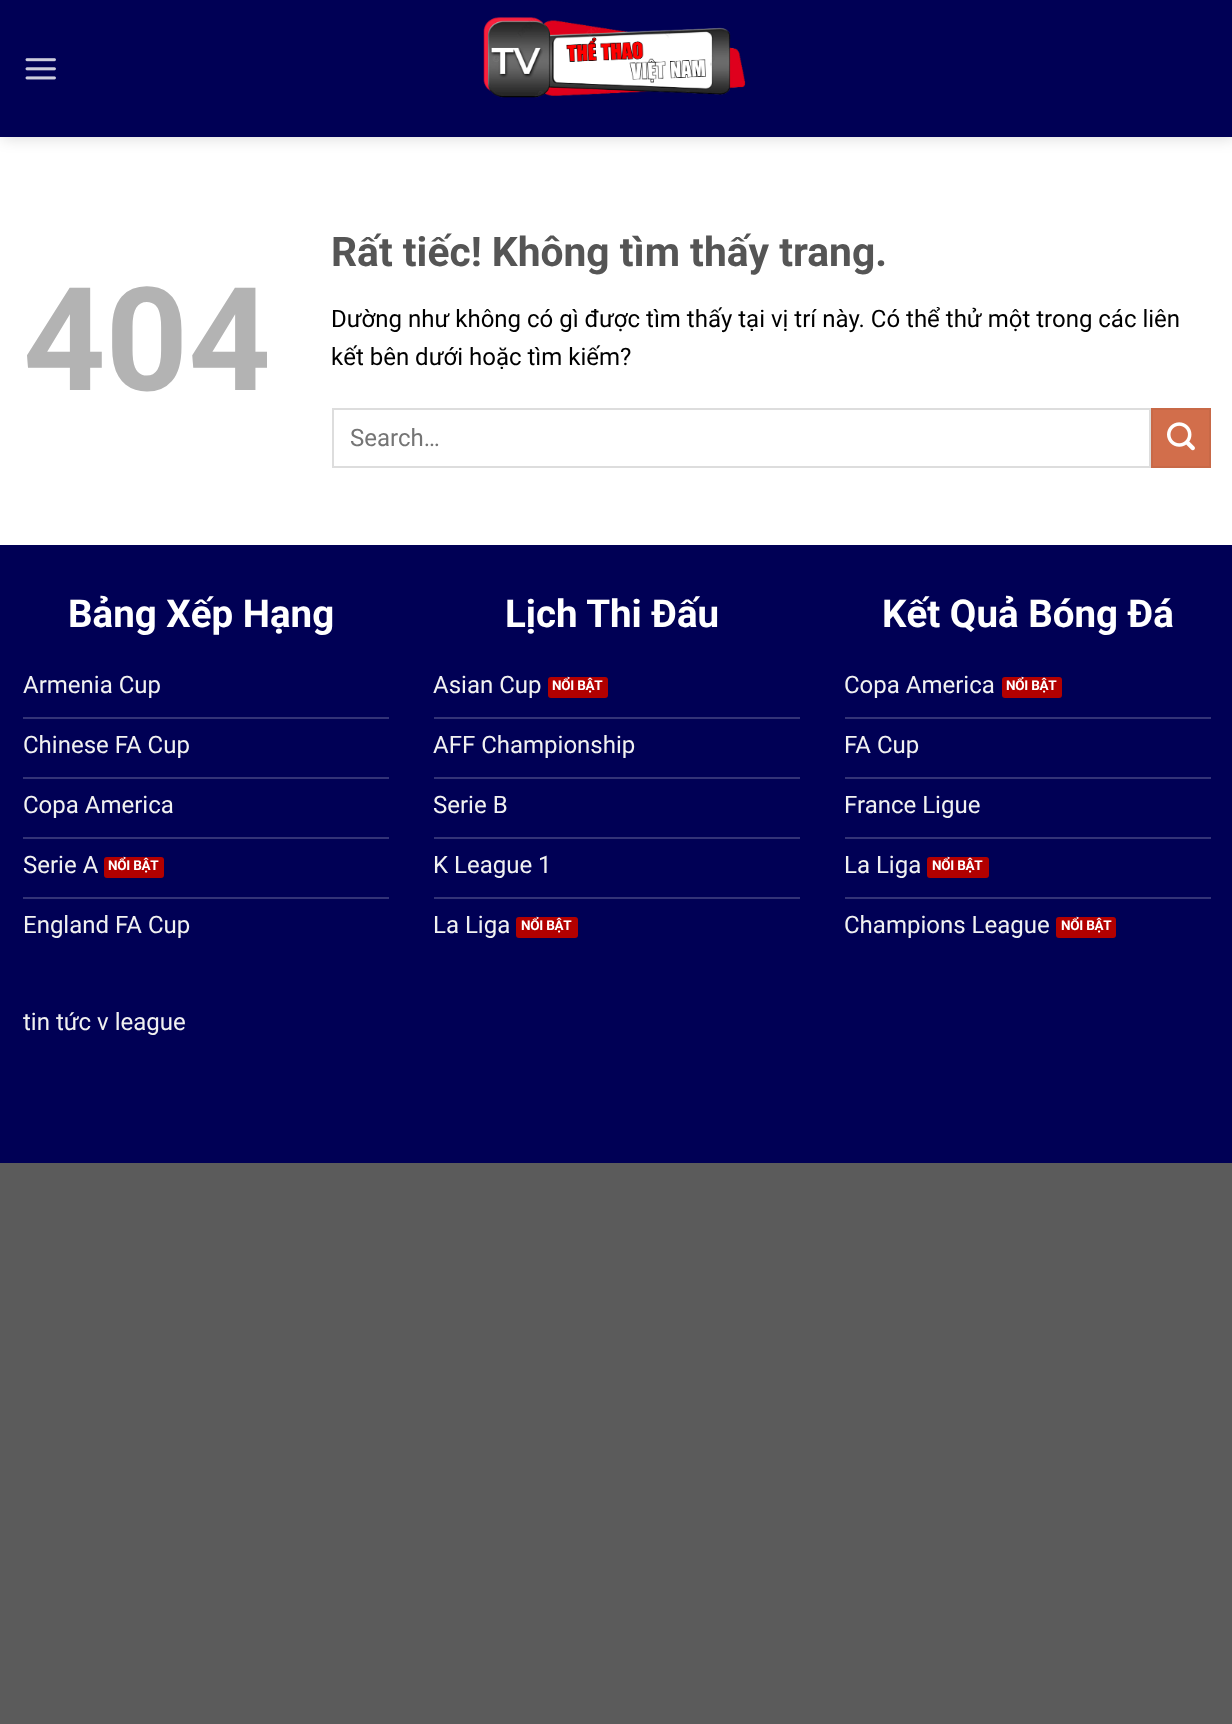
(async () => {
  const canvas = document.querySelector("canvas");
  canvas.width = 1232;
  canvas.height = 1724;
  const ctx = canvas.getContext("2d");
  ctx.miterLimit = 4;
  ctx.fontKerning = "normal";
  async function loadImage(src) {
    const img = new Image();
    img.src = src;
    await img.decode();
    return img;
  }

  ctx.fillStyle = "#5b5b5b";
  ctx.fillRect(0, 0, 1232, 1724);
  ctx.fillStyle = "#ffffff";
  ctx.fillRect(0, 137, 1232, 408);
  ctx.fillStyle = "rgba(0, 0, 0, 0.15)";
  ctx.filter = "blur(7.5px)";
  ctx.beginPath();
  ctx.rect(2, 2, 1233, 136);
  ctx.fill();
  ctx.filter = "none";
  ctx.fillStyle = "#000055";
  ctx.fillRect(0, 0, 1232, 137);
  ctx.drawImage(await loadImage("img/1.png"), 25, 58, 31, 22);
  ctx.drawImage(await loadImage("img/2.png"), 483, 17, 263, 81);
  ctx.strokeStyle = "#dddddd";
  ctx.lineWidth = 2;
  ctx.strokeRect(333, 409, 817, 58);
  ctx.fillStyle = "#d26e4b";
  ctx.beginPath();
  ctx.rect(1152, 409, 58, 58);
  ctx.fill();
  ctx.strokeStyle = "#c86947";
  ctx.stroke();
  ctx.drawImage(await loadImage("img/3.png"), 1167, 422, 28, 29);
  for (const [x, y, w, h, color] of [
    [0, 545, 1232, 618, "#000055"],
    [23, 717, 366, 2, "#333377"],
    [23, 777, 366, 2, "#333377"],
    [23, 837, 366, 2, "#333377"],
    [23, 897, 366, 2, "#333377"],
  ]) {
    ctx.fillStyle = color;
    ctx.fillRect(x, y, w, h);
  }
  ctx.fillStyle = "#b20000";
  ctx.beginPath();
  ctx.roundRect(104, 857, 60, 21, 3);
  ctx.fill();
  ctx.fillStyle = "#333377";
  ctx.fillRect(434, 717, 366, 2);
  ctx.fillStyle = "#b20000";
  ctx.beginPath();
  ctx.roundRect(548, 677, 60, 21, 3);
  ctx.fill();
  for (const [x, y, w, h, color] of [
    [434, 777, 366, 2, "#333377"],
    [434, 837, 366, 2, "#333377"],
    [434, 897, 366, 2, "#333377"],
  ]) {
    ctx.fillStyle = color;
    ctx.fillRect(x, y, w, h);
  }
  ctx.fillStyle = "#b20000";
  ctx.beginPath();
  ctx.roundRect(516, 917, 62, 21, 3);
  ctx.fill();
  ctx.fillStyle = "#333377";
  ctx.fillRect(845, 717, 366, 2);
  ctx.fillStyle = "#b20000";
  ctx.beginPath();
  ctx.roundRect(1002, 677, 60, 21, 3);
  ctx.fill();
  for (const [x, y, w, h, color] of [
    [845, 777, 366, 2, "#333377"],
    [845, 837, 366, 2, "#333377"],
    [845, 897, 366, 2, "#333377"],
  ]) {
    ctx.fillStyle = color;
    ctx.fillRect(x, y, w, h);
  }
  ctx.fillStyle = "#b20000";
  ctx.beginPath();
  ctx.roundRect(927, 857, 62, 21, 3);
  ctx.fill();
  ctx.beginPath();
  ctx.roundRect(1056, 917, 60, 21, 3);
  ctx.fill();
  ctx.font = "bold 144px Roboto";
  ctx.fillStyle = "#b3b3b3";
  ctx.fillText("404", 23, 390);
  ctx.font = "bold 40.75px Roboto";
  ctx.fillStyle = "#555555";
  ctx.fillText("Rất tiếc! Không tìm thấy trang.", 331, 266);
  ctx.font = "24px Roboto";
  ctx.fillStyle = "#000000";
  ctx.fillText("Dường như không có gì được tìm thấy tại vị trí này. Có thể thử một trong các liên", 331, 327);
  ctx.fillText("kết bên dưới hoặc tìm kiếm?", 331, 365);
  ctx.fillStyle = "#757575";
  ctx.fillText("Search…", 350, 446);
  ctx.font = "bold 38.5px Roboto";
  ctx.fillStyle = "#ffffff";
  ctx.fillText("Bảng Xếp Hạng", 68, 627);
  ctx.font = "24px Roboto";
  ctx.fillStyle = "#f1f1f1";
  for (const [text, x, y] of [
    ["Armenia Cup", 23, 693],
    ["Chinese FA Cup", 23, 753],
    ["Copa America", 23, 813],
    ["Serie A", 23, 873],
  ]) {
    ctx.fillText(text, x, y);
  }
  ctx.letterSpacing = "-0.25px";
  ctx.font = "bold 13.5px Roboto";
  ctx.fillStyle = "#ffffff";
  ctx.fillText("NỔI BẬT", 108, 870);
  ctx.letterSpacing = "0px";
  ctx.font = "24px Roboto";
  ctx.fillStyle = "#f1f1f1";
  ctx.fillText("England FA Cup", 23, 933);
  ctx.font = "bold 38.5px Roboto";
  ctx.fillStyle = "#ffffff";
  ctx.fillText("Lịch Thi Đấu", 505, 627);
  ctx.font = "24px Roboto";
  ctx.fillStyle = "#f1f1f1";
  ctx.fillText("Asian Cup", 433, 693);
  ctx.letterSpacing = "-0.25px";
  ctx.font = "bold 13.5px Roboto";
  ctx.fillStyle = "#ffffff";
  ctx.fillText("NỔI BẬT", 552, 690);
  ctx.letterSpacing = "0px";
  ctx.font = "24px Roboto";
  ctx.fillStyle = "#f1f1f1";
  for (const [text, x, y] of [
    ["AFF Championship", 433, 753],
    ["Serie B", 433, 813],
    ["K League 1", 433, 873],
    ["La Liga", 433, 933],
  ]) {
    ctx.fillText(text, x, y);
  }
  ctx.letterSpacing = "-0.25px";
  ctx.font = "bold 13.5px Roboto";
  ctx.fillStyle = "#ffffff";
  ctx.fillText("NỔI BẬT", 521, 930);
  ctx.letterSpacing = "0px";
  ctx.font = "bold 38.5px Roboto";
  ctx.fillText("Kết Quả Bóng Đá", 882, 627);
  ctx.font = "24px Roboto";
  ctx.fillStyle = "#f1f1f1";
  ctx.fillText("Copa America", 844, 693);
  ctx.letterSpacing = "-0.25px";
  ctx.font = "bold 13.5px Roboto";
  ctx.fillStyle = "#ffffff";
  ctx.fillText("NỔI BẬT", 1006, 690);
  ctx.letterSpacing = "0px";
  ctx.font = "24px Roboto";
  ctx.fillStyle = "#f1f1f1";
  for (const [text, x, y] of [
    ["FA Cup", 844, 753],
    ["France Ligue", 844, 813],
    ["La Liga", 844, 873],
  ]) {
    ctx.fillText(text, x, y);
  }
  ctx.letterSpacing = "-0.25px";
  ctx.font = "bold 13.5px Roboto";
  ctx.fillStyle = "#ffffff";
  ctx.fillText("NỔI BẬT", 932, 870);
  ctx.letterSpacing = "0px";
  ctx.font = "24px Roboto";
  ctx.fillStyle = "#f1f1f1";
  ctx.fillText("Champions League", 844, 933);
  ctx.letterSpacing = "-0.25px";
  ctx.font = "bold 13.5px Roboto";
  ctx.fillStyle = "#ffffff";
  ctx.fillText("NỔI BẬT", 1061, 930);
  ctx.letterSpacing = "0px";
  ctx.font = "24px Roboto";
  ctx.fillStyle = "#f1f1f1";
  ctx.fillText("tin tức v league", 23, 1030);
})();
